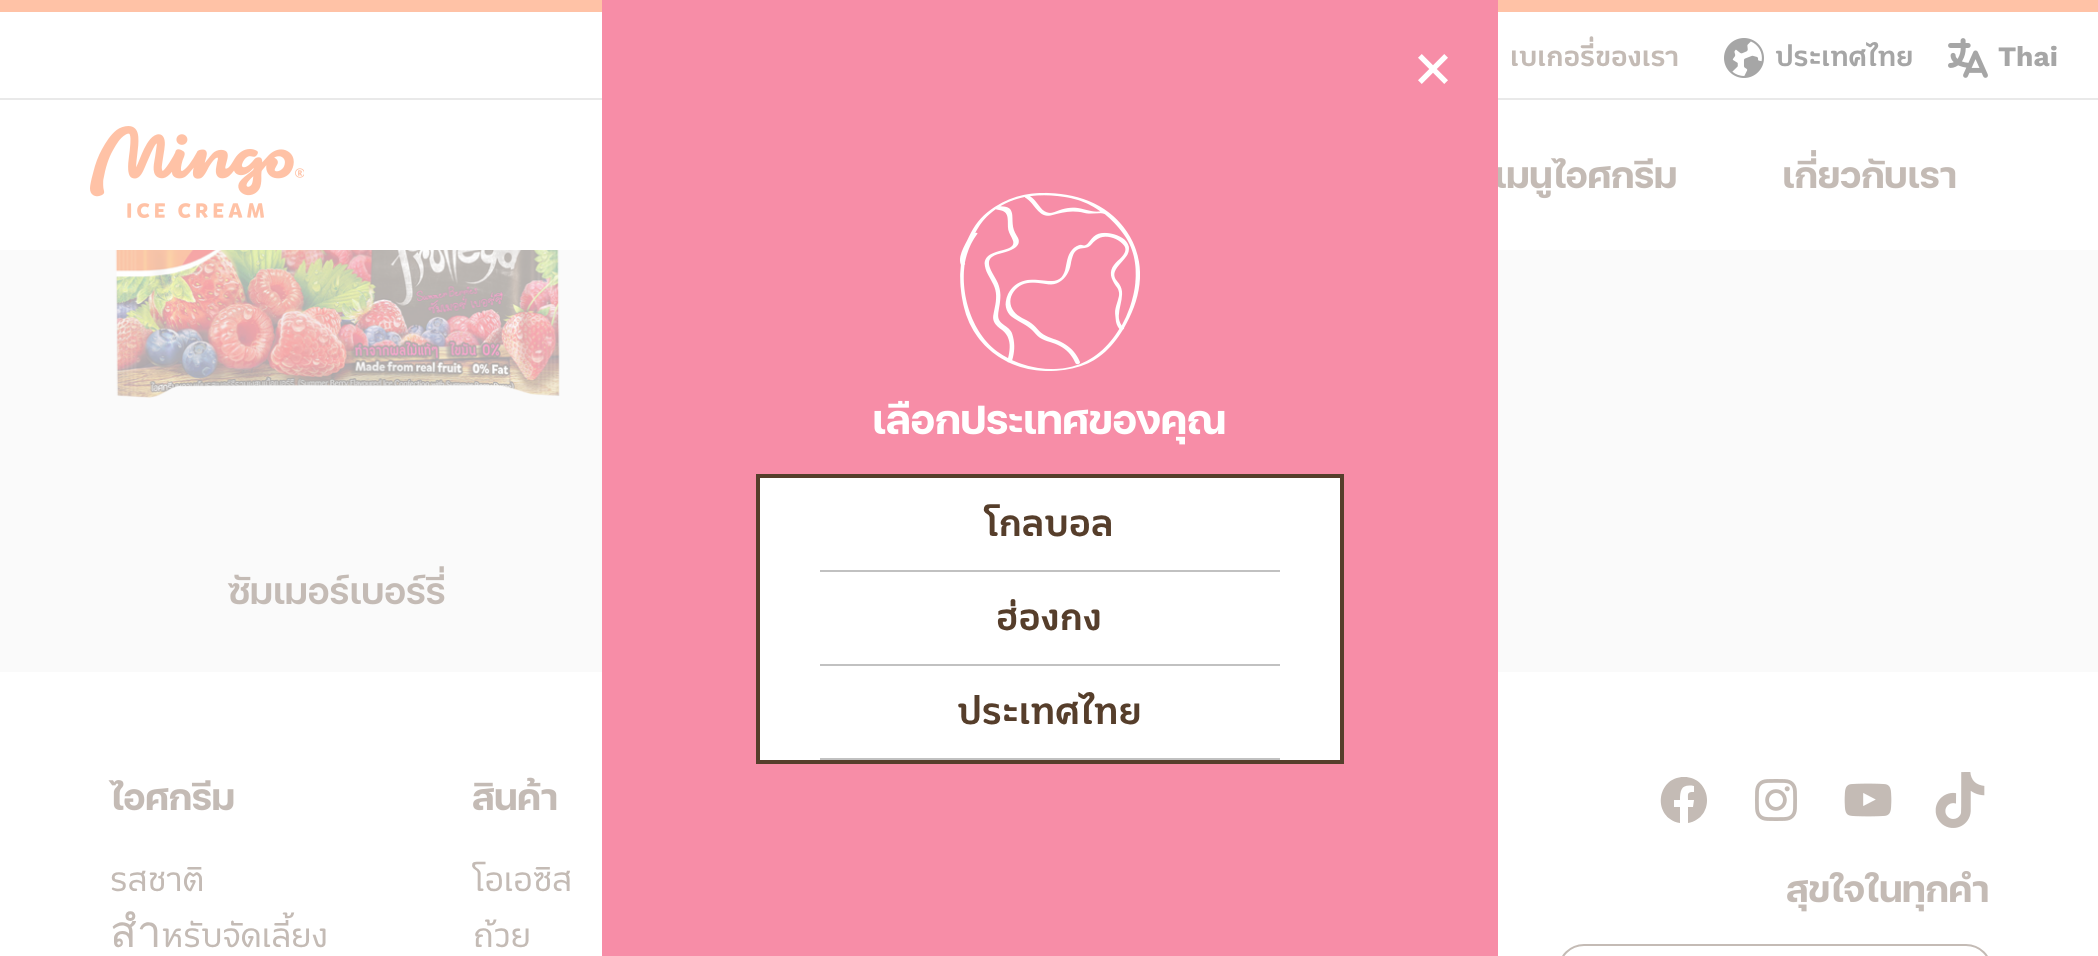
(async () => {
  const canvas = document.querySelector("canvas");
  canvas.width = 2098;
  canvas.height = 956;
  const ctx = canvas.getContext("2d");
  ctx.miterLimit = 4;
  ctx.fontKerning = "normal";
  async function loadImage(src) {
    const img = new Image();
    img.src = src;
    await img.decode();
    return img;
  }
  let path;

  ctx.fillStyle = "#fafafa";
  ctx.fillRect(0, 0, 2098, 956);
  for (const [x, y, w, h, color] of [
    [0, 12, 2098, 86, "#ffffff"],
    [0, 0, 2098, 12, "#ffc2a6"],
    [0, 98, 2098, 2, "#e9e9e9"],
  ]) {
    ctx.fillStyle = color;
    ctx.fillRect(x, y, w, h);
  }
  ctx.drawImage(await loadImage("img/1.png"), 1724, 38, 40, 40);
  ctx.drawImage(await loadImage("img/2.png"), 1948, 38, 40, 40);
  ctx.fillStyle = "#ffffff";
  ctx.fillRect(0, 100, 2098, 150);
  ctx.drawImage(await loadImage("img/3.png"), 90, 126, 214, 92);
  ctx.drawImage(await loadImage("img/4.png"), 1498, 158, 178, 41);
  ctx.drawImage(await loadImage("img/5.png"), 1784, 150, 172, 39);
  ctx.drawImage(await loadImage("img/6.png"), 115, 250, 445, 148);
  ctx.drawImage(await loadImage("img/7.png"), 227, 566, 218, 39);
  ctx.fillRect(0, 672, 2098, 284);
  ctx.drawImage(await loadImage("img/8.png"), 108, 780, 126, 31);
  ctx.drawImage(await loadImage("img/9.png"), 473, 777, 84, 34);
  ctx.fillStyle = "#c4bbb5";
  path = new Path2D("M1684 777C1656 777 1652 818 1680 823V807H1674V800H1680C1680 789 1682 784 1694 786V792C1687 792 1688 793 1688 800H1694L1693 807H1688V823C1716 818 1712 777 1684 777Z");
  ctx.fill(path);
  ctx.drawImage(await loadImage("img/10.png"), 1755, 779, 42, 42);
  ctx.drawImage(await loadImage("img/11.png"), 1844, 783, 48, 34);
  ctx.drawImage(await loadImage("img/12.png"), 1935, 772, 50, 56);
  ctx.drawImage(await loadImage("img/13.png"), 1787, 871, 201, 41);
  ctx.beginPath();
  ctx.roundRect(1559, 945, 432, 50, 37);
  ctx.strokeStyle = "#c4bbb5";
  ctx.lineWidth = 2;
  ctx.stroke();
  ctx.fillStyle = "#f78da7";
  ctx.fillRect(602, 0, 896, 956);
  ctx.drawImage(await loadImage("img/14.png"), 1418, 54, 30, 30);
  ctx.drawImage(await loadImage("img/15.png"), 960, 192, 180, 179);
  ctx.drawImage(await loadImage("img/16.png"), 874, 400, 351, 45);
  ctx.fillStyle = "#ffffff";
  ctx.beginPath();
  ctx.rect(758, 476, 584, 286);
  ctx.fill();
  ctx.strokeStyle = "#563e2b";
  ctx.lineWidth = 4;
  ctx.stroke();
  for (const [x, y, w, h, color] of [
    [820, 570, 460, 2, "#c1c1c1"],
    [820, 664, 460, 2, "#c1c1c1"],
    [820, 758, 460, 2, "#c1c1c1"],
  ]) {
    ctx.fillStyle = color;
    ctx.fillRect(x, y, w, h);
  }
  ctx.font = "bold 36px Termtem";
  ctx.fillStyle = "#c4bbb5";
  ctx.fillText("เบเกอรี่ของเรา", 1510, 66);
  ctx.fillStyle = "#a6a6a6";
  ctx.fillText("ประเทศไทย", 1775, 66);
  ctx.font = "bold 28px Work Sans";
  ctx.fillText("Thai", 1998, 66);
  ctx.font = "44px Termtem";
  ctx.fillStyle = "#c4bbb5";
  for (const [text, x, y] of [
    ["รสชาติ", 110, 891],
    ["สำหรับจัดเลี้ยง", 110, 947],
    ["โอเอซิส", 473, 891],
    ["ถ้วย", 473, 947],
  ]) {
    ctx.fillText(text, x, y);
  }
  ctx.font = "bold 48px Termtem";
  ctx.fillStyle = "#563e2b";
  for (const [text, x, y] of [
    ["โกลบอล", 985, 536],
    ["ฮ่องกง", 996, 630],
    ["ประเทศไทย", 957, 724],
  ]) {
    ctx.fillText(text, x, y);
  }
})();
